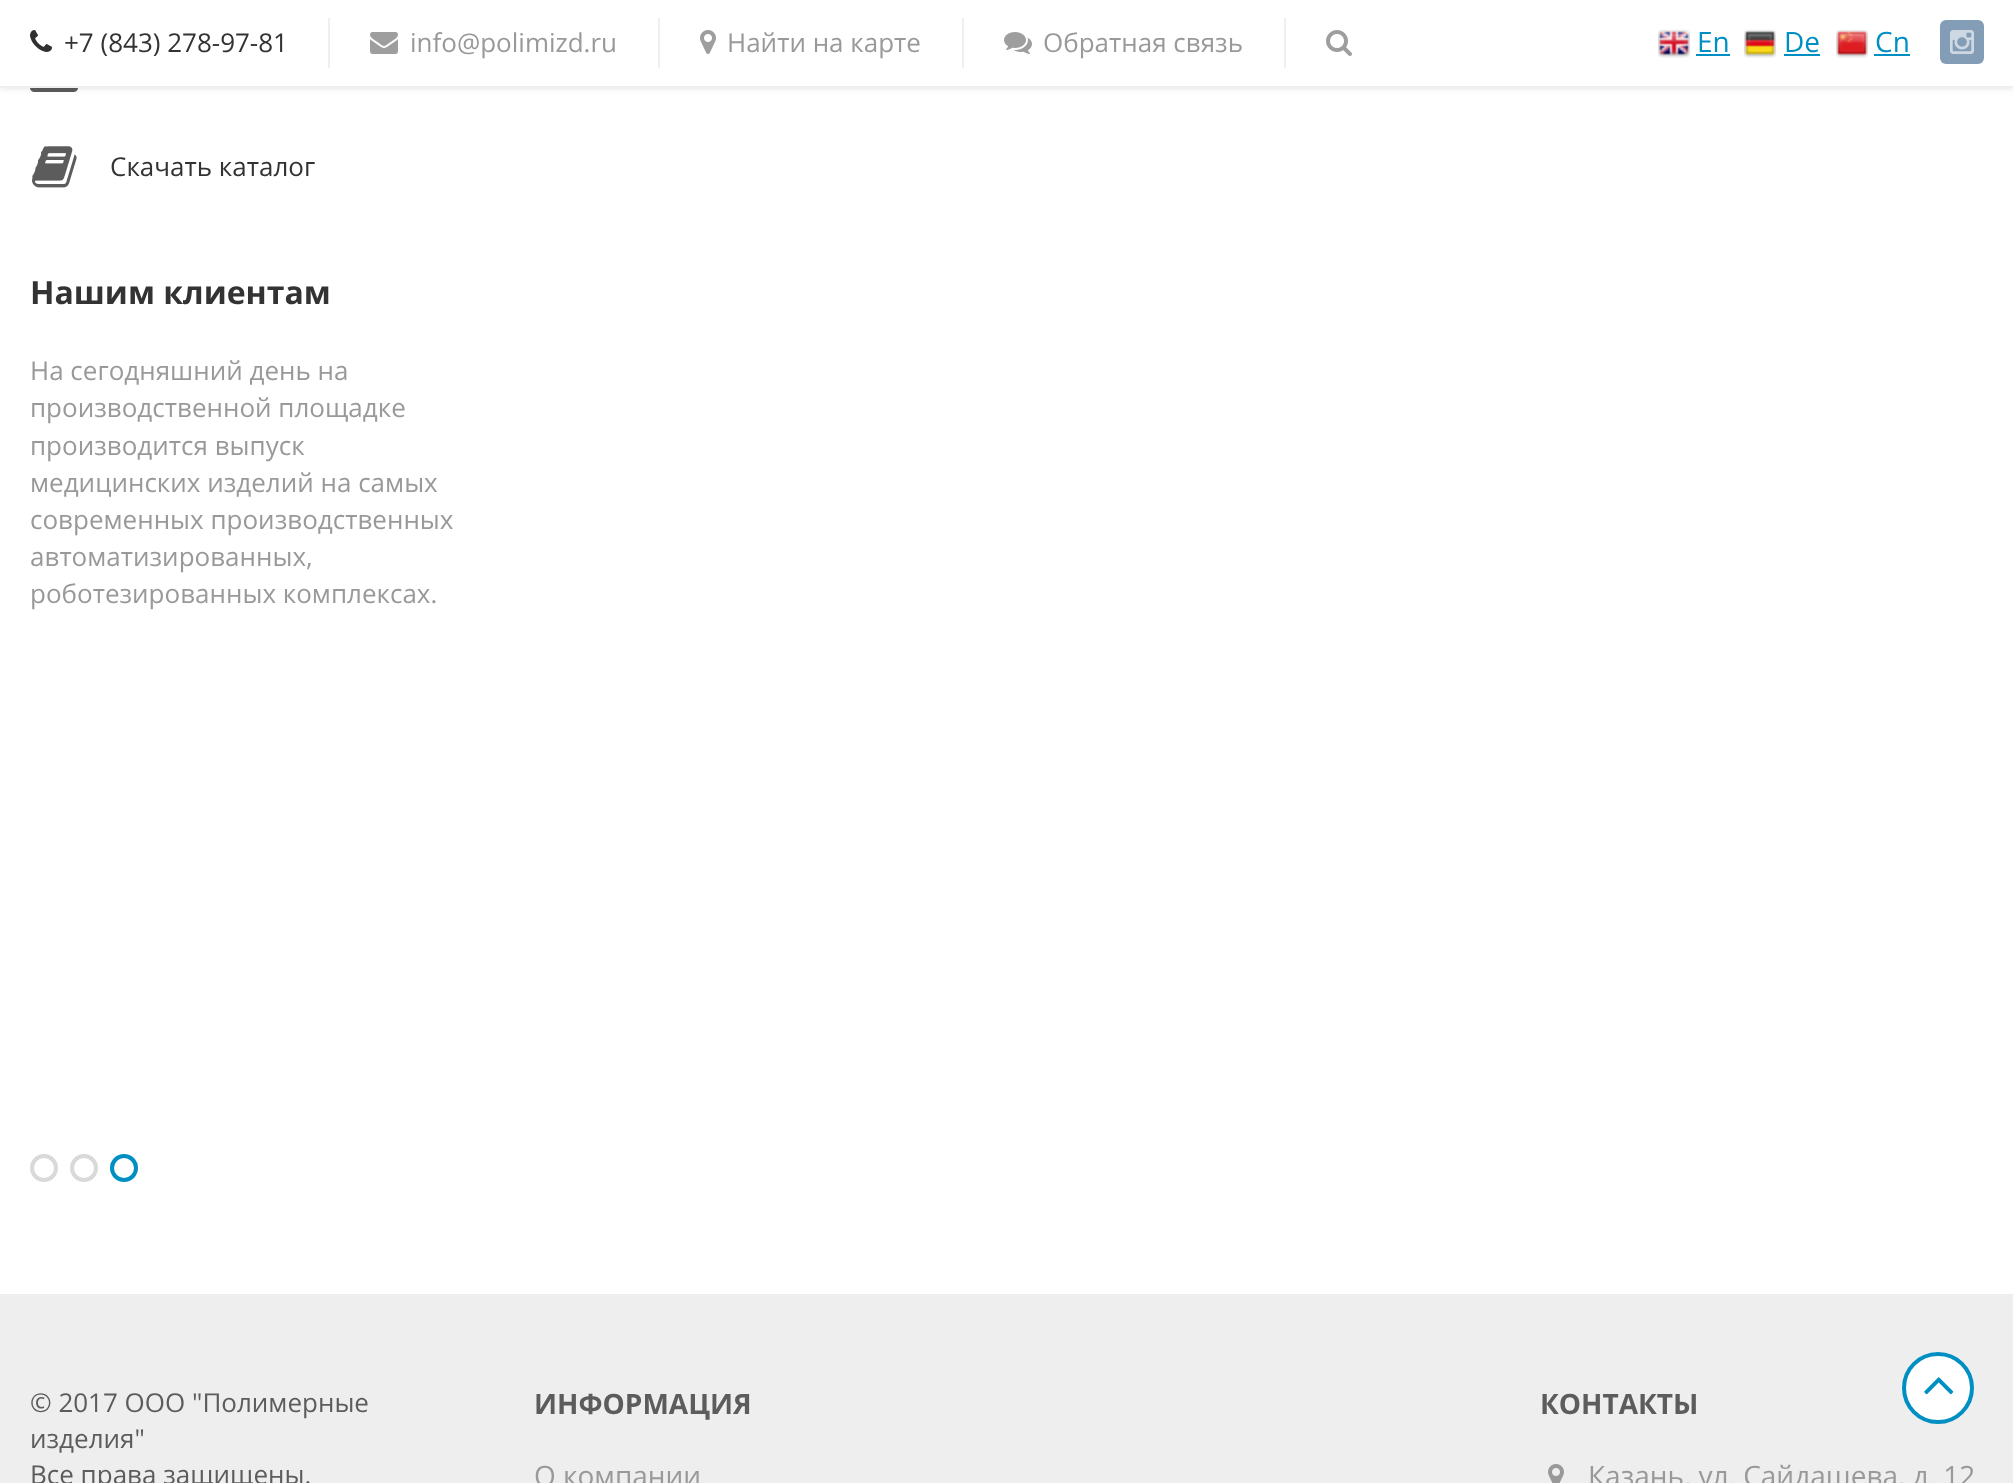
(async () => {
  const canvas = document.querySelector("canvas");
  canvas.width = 2013;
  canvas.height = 1483;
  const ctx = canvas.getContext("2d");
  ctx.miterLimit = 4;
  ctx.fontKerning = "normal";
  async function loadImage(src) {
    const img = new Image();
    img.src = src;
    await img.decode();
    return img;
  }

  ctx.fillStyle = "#ffffff";
  ctx.fillRect(0, 0, 2013, 1483);
  ctx.drawImage(await loadImage("img/10.png"), 30, 88, 48, 4);
  ctx.fillStyle = "rgba(0, 0, 0, 0.12)";
  ctx.filter = "blur(3px)";
  ctx.beginPath();
  ctx.rect(0, 0, 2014, 88);
  ctx.fill();
  ctx.filter = "none";
  ctx.fillStyle = "#ffffff";
  ctx.fillRect(0, 0, 2013, 86);
  ctx.fillStyle = "#eeeff0";
  ctx.fillRect(0, 86, 2013, 2);
  ctx.drawImage(await loadImage("img/1.png"), 30, 30, 22, 22);
  ctx.fillRect(328, 18, 2, 50);
  ctx.drawImage(await loadImage("img/2.png"), 370, 32, 28, 22);
  ctx.fillRect(658, 18, 2, 50);
  ctx.drawImage(await loadImage("img/3.png"), 700, 30, 16, 24);
  ctx.fillRect(962, 18, 2, 50);
  ctx.drawImage(await loadImage("img/4.png"), 1004, 32, 28, 22);
  ctx.fillRect(1284, 18, 2, 50);
  ctx.drawImage(await loadImage("img/5.png"), 1326, 30, 26, 26);
  ctx.drawImage(await loadImage("img/6.png"), 1658, 29, 32, 29);
  ctx.fillStyle = "#008fc3";
  ctx.fillRect(1696, 54, 34, 2);
  ctx.drawImage(await loadImage("img/7.png"), 1744, 29, 32, 29);
  ctx.fillRect(1784, 54, 36, 2);
  ctx.drawImage(await loadImage("img/8.png"), 1836, 29, 32, 29);
  ctx.fillRect(1874, 54, 36, 2);
  ctx.fillStyle = "#849db6";
  ctx.beginPath();
  ctx.roundRect(1940, 20, 44, 44, 6);
  ctx.fill();
  ctx.drawImage(await loadImage("img/9.png"), 1950, 30, 24, 24);
  ctx.drawImage(await loadImage("img/11.png"), 32, 146, 45, 42);
  ctx.fillStyle = "#d9d9d9";
  ctx.beginPath();
  ctx.arc(44, 1168, 14, 0, Math.PI * 2);
  ctx.fill();
  ctx.fillStyle = "#ffffff";
  ctx.beginPath();
  ctx.arc(44, 1168, 10, 0, Math.PI * 2);
  ctx.fill();
  ctx.fillStyle = "#d9d9d9";
  ctx.beginPath();
  ctx.arc(84, 1168, 14, 0, Math.PI * 2);
  ctx.fill();
  ctx.fillStyle = "#ffffff";
  ctx.beginPath();
  ctx.arc(84, 1168, 10, 0, Math.PI * 2);
  ctx.fill();
  ctx.fillStyle = "#008fc3";
  ctx.beginPath();
  ctx.arc(124, 1168, 14, 0, Math.PI * 2);
  ctx.fill();
  ctx.fillStyle = "#ffffff";
  ctx.beginPath();
  ctx.arc(124, 1168, 10, 0, Math.PI * 2);
  ctx.fill();
  ctx.fillStyle = "#eeeeef";
  ctx.fillRect(0, 1294, 2013, 189);
  ctx.fillStyle = "#ffffff";
  ctx.beginPath();
  ctx.arc(1938, 1388, 34, 0, Math.PI * 2);
  ctx.fill();
  ctx.strokeStyle = "#008fc3";
  ctx.lineWidth = 4;
  ctx.stroke();
  ctx.drawImage(await loadImage("img/12.png"), 1924, 1377, 30, 18);
  ctx.drawImage(await loadImage("img/13.png"), 1548, 1464, 16, 19);
  ctx.font = "26px Open Sans";
  ctx.fillStyle = "#333333";
  ctx.fillText("+7 (843) 278-97-81", 64, 52);
  ctx.fillStyle = "#999999";
  for (const [text, x, y] of [
    ["info@polimizd.ru", 410, 52],
    ["Найти на карте", 727, 52],
    ["Обратная связь", 1043, 52],
  ]) {
    ctx.fillText(text, x, y);
  }
  ctx.font = "28px Open Sans";
  ctx.fillStyle = "#008fc3";
  for (const [text, x, y] of [
    ["En", 1697, 52],
    ["De", 1784, 52],
    ["Cn", 1875, 52],
  ]) {
    ctx.fillText(text, x, y);
  }
  ctx.font = "26px Open Sans";
  ctx.fillStyle = "#333333";
  ctx.fillText("Скачать каталог", 110, 176);
  ctx.font = "bold 32px Open Sans";
  ctx.fillText("Нашим клиентам", 30, 304);
  ctx.font = "26px Open Sans";
  ctx.fillStyle = "#999999";
  for (const [text, x, y] of [
    ["На сегодняшний день на", 30, 380],
    ["производственной площадке", 30, 417],
    ["производится выпуск", 30, 455],
    ["медицинских изделий на самых", 30, 492],
    ["современных производственных", 30, 529],
    ["автоматизированных,", 30, 566],
    ["роботезированных комплексах.", 30, 603],
  ]) {
    ctx.fillText(text, x, y);
  }
  ctx.fillStyle = "#5c5c5c";
  for (const [text, x, y] of [
    ["© 2017 ООО \"Полимерные", 30, 1412],
    ["изделия\"", 30, 1448],
    ["Все права защищены.", 30, 1484],
  ]) {
    ctx.fillText(text, x, y);
  }
  ctx.font = "bold 28px Open Sans";
  ctx.fillText("ИНФОРМАЦИЯ", 534, 1414);
  ctx.font = "28px Open Sans";
  ctx.fillStyle = "#999999";
  ctx.fillText("О компании", 534, 1486);
  ctx.font = "bold 28px Open Sans";
  ctx.fillStyle = "#5c5c5c";
  ctx.fillText("КОНТАКТЫ", 1540, 1414);
  ctx.font = "28px Open Sans";
  ctx.fillStyle = "#999999";
  ctx.fillText("Казань, ул. Сайдашева, д. 12", 1588, 1486);
})();
